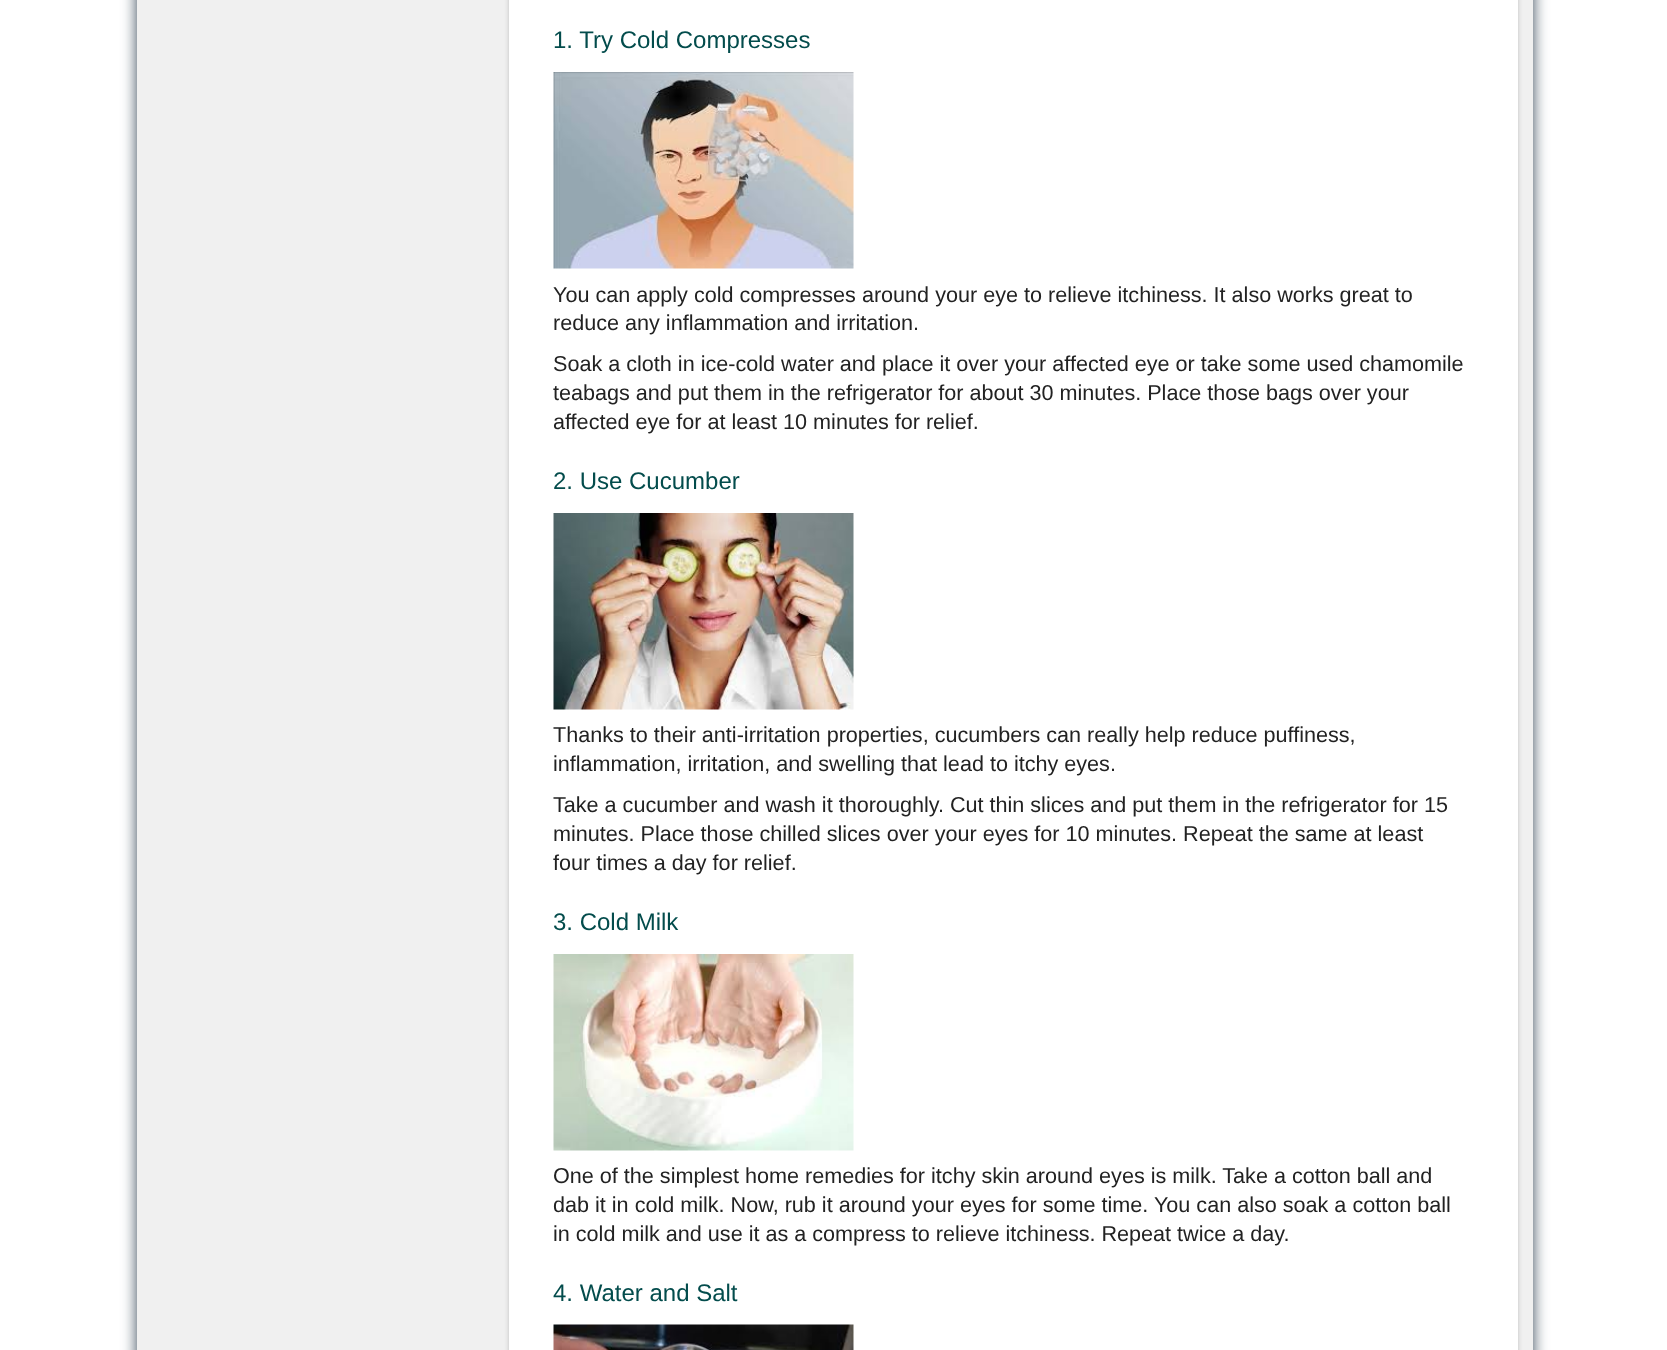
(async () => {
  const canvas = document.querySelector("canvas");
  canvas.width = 1667;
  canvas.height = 1350;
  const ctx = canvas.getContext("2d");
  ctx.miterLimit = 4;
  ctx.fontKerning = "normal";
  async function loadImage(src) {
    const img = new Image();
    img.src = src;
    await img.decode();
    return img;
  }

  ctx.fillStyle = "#ffffff";
  ctx.fillRect(0, 0, 1667, 1350);
  ctx.fillStyle = "#344556";
  ctx.filter = "blur(7.5px)";
  ctx.beginPath();
  ctx.roundRect(137, -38, 1396, 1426, 15);
  ctx.fill();
  ctx.filter = "none";
  ctx.fillStyle = "#f0f0f0";
  ctx.fillRect(137, 0, 1396, 1350);
  ctx.fillStyle = "#bcbcbc";
  ctx.filter = "blur(2px)";
  ctx.beginPath();
  ctx.roundRect(509, -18, 1009, 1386, 12);
  ctx.fill();
  ctx.filter = "none";
  ctx.fillStyle = "#ffffff";
  ctx.fillRect(509, 0, 1009, 1350);
  ctx.drawImage(await loadImage("img/1.png"), 553, 72, 301, 197);
  ctx.drawImage(await loadImage("img/2.png"), 553, 513, 301, 197);
  ctx.drawImage(await loadImage("img/3.png"), 553, 954, 301, 197);
  ctx.drawImage(await loadImage("img/4.png"), 553, 1324, 301, 26);
  ctx.font = "24px Liberation Sans";
  ctx.fillStyle = "#034c4c";
  ctx.fillText("1. Try Cold Compresses", 553, 48);
  ctx.font = "21.6px Liberation Sans";
  ctx.fillStyle = "#222222";
  for (const [text, x, y] of [
    ["You can apply cold compresses around your eye to relieve itchiness. It also works great to", 553, 302],
    ["reduce any inflammation and irritation.", 553, 330],
    ["Soak a cloth in ice-cold water and place it over your affected eye or take some used chamomile", 553, 371],
    ["teabags and put them in the refrigerator for about 30 minutes. Place those bags over your", 553, 400],
    ["affected eye for at least 10 minutes for relief.", 553, 429],
  ]) {
    ctx.fillText(text, x, y);
  }
  ctx.font = "24px Liberation Sans";
  ctx.fillStyle = "#034c4c";
  ctx.fillText("2. Use Cucumber", 553, 489);
  ctx.font = "21.6px Liberation Sans";
  ctx.fillStyle = "#222222";
  for (const [text, x, y] of [
    ["Thanks to their anti-irritation properties, cucumbers can really help reduce puffiness,", 553, 742],
    ["inflammation, irritation, and swelling that lead to itchy eyes.", 553, 771],
    ["Take a cucumber and wash it thoroughly. Cut thin slices and put them in the refrigerator for 15", 553, 812],
    ["minutes. Place those chilled slices over your eyes for 10 minutes. Repeat the same at least", 553, 841],
    ["four times a day for relief.", 553, 870],
  ]) {
    ctx.fillText(text, x, y);
  }
  ctx.font = "24px Liberation Sans";
  ctx.fillStyle = "#034c4c";
  ctx.fillText("3. Cold Milk", 553, 930);
  ctx.font = "21.6px Liberation Sans";
  ctx.fillStyle = "#222222";
  for (const [text, x, y] of [
    ["One of the simplest home remedies for itchy skin around eyes is milk. Take a cotton ball and", 553, 1183],
    ["dab it in cold milk. Now, rub it around your eyes for some time. You can also soak a cotton ball", 553, 1212],
    ["in cold milk and use it as a compress to relieve itchiness. Repeat twice a day.", 553, 1241],
  ]) {
    ctx.fillText(text, x, y);
  }
  ctx.font = "24px Liberation Sans";
  ctx.fillStyle = "#034c4c";
  ctx.fillText("4. Water and Salt", 553, 1301);
})();
